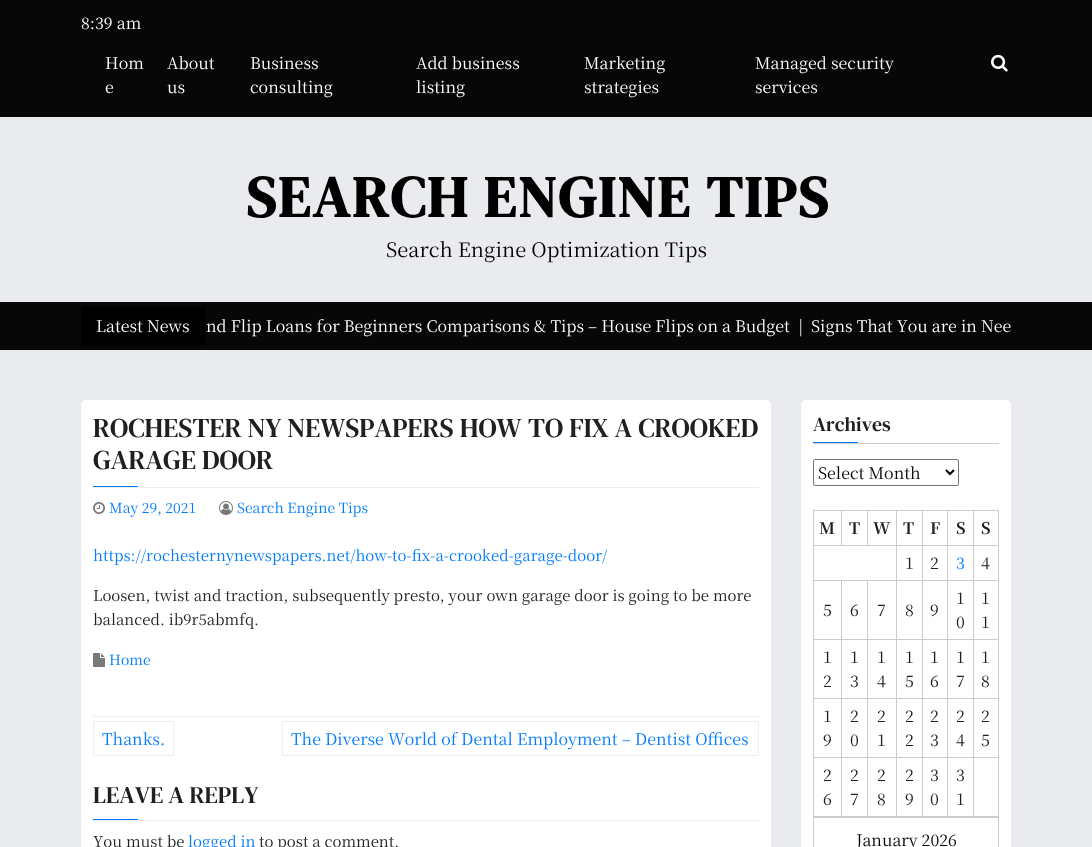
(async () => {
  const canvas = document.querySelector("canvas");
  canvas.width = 1092;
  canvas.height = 847;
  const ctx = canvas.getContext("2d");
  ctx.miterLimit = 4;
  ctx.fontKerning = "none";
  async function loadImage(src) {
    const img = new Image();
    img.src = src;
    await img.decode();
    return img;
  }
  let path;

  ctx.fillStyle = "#e9ebee";
  ctx.fillRect(0, 0, 1092, 847);
  ctx.fillStyle = "#070707";
  ctx.fillRect(0, 0, 1092, 117);
  ctx.drawImage(await loadImage("img/1.png"), 991, 54, 17, 18);
  ctx.fillRect(0, 302, 1092, 48);
  ctx.fillStyle = "#000000";
  ctx.fillRect(81, 307, 124, 38);
  ctx.fillStyle = "#ffffff";
  ctx.beginPath();
  ctx.roundRect(81, 400, 690, 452, 5);
  ctx.fill();
  ctx.fillStyle = "#ededed";
  ctx.fillRect(93, 487, 666, 1);
  ctx.fillStyle = "#007bff";
  ctx.fillRect(93, 486, 45, 1);
  ctx.drawImage(await loadImage("img/2.png"), 93, 502, 12, 12);
  ctx.drawImage(await loadImage("img/3.png"), 219, 501, 14, 14);
  ctx.drawImage(await loadImage("img/4.png"), 93, 653, 12, 14);
  ctx.fillStyle = "#ededed";
  ctx.fillRect(93, 716, 666, 1);
  ctx.strokeStyle = "#ededed";
  ctx.strokeRect(93.5, 721.5, 80, 34);
  ctx.strokeRect(282.5, 721.5, 476, 34);
  ctx.fillRect(93, 820, 666, 1);
  ctx.fillStyle = "#007bff";
  ctx.fillRect(93, 819, 45, 1);
  ctx.fillStyle = "#ffffff";
  ctx.beginPath();
  ctx.roundRect(801, 400, 210, 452, 5);
  ctx.fill();
  ctx.fillStyle = "#cccccc";
  ctx.fillRect(813, 443, 186, 1);
  ctx.fillStyle = "#007bff";
  ctx.fillRect(813, 442, 45, 1);
  ctx.beginPath();
  ctx.roundRect(813.5, 459.5, 145, 26, 1.5);
  ctx.strokeStyle = "#767676";
  ctx.stroke();
  path = new Path2D("M946 470L950 474L954 470");
  ctx.strokeStyle = "#000000";
  ctx.lineWidth = 2;
  ctx.stroke(path);
  for (const [x, y, w, h, color] of [
    [813, 510, 1, 307, "#cccccc"],
    [813, 510, 186, 1, "#cccccc"],
    [813, 545, 186, 1, "#cccccc"],
    [841, 510, 1, 36, "#cccccc"],
    [867, 510, 1, 36, "#cccccc"],
    [813, 580, 186, 1, "#cccccc"],
    [813, 639, 186, 1, "#cccccc"],
    [813, 698, 186, 1, "#cccccc"],
    [813, 757, 186, 1, "#cccccc"],
    [813, 816, 186, 1, "#cccccc"],
    [841, 580, 1, 237, "#cccccc"],
    [867, 580, 1, 237, "#cccccc"],
    [896, 510, 1, 307, "#cccccc"],
    [922, 510, 1, 307, "#cccccc"],
    [947, 510, 1, 307, "#cccccc"],
    [973, 510, 1, 307, "#cccccc"],
    [998, 510, 1, 307, "#cccccc"],
  ]) {
    ctx.fillStyle = color;
    ctx.fillRect(x, y, w, h);
  }
  ctx.strokeStyle = "#cccccc";
  ctx.lineWidth = 1;
  ctx.strokeRect(813.5, 817.5, 185, 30);
  ctx.font = "16px Noto Serif TC";
  ctx.fillStyle = "#ffffff";
  for (const [text, x, y] of [
    ["8:39 am", 81, 29],
    ["Hom", 105, 69],
    ["e", 105, 93],
    ["About", 167, 69],
    ["us", 167, 93],
    ["Business", 250, 69],
    ["consulting", 250, 93],
    ["Add business", 416, 69],
    ["listing", 416, 93],
    ["Marketing", 584, 69],
    ["strategies", 584, 93],
    ["Managed security", 755, 69],
    ["services", 755, 93],
  ]) {
    ctx.fillText(text, x, y);
  }
  ctx.letterSpacing = "2px";
  ctx.font = "bold 58px DM Serif Text";
  ctx.fillStyle = "#000000";
  ctx.fillText("SEARCH ENGINE TIPS", 246, 217);
  ctx.letterSpacing = "0px";
  ctx.font = "20px Noto Serif TC";
  ctx.fillText("Search Engine Optimization Tips", 386, 257);
  ctx.font = "16px Noto Serif TC";
  ctx.fillStyle = "#ffffff";
  for (const [text, x, y] of [
    ["Latest News", 96, 332],
    ["nd Flip Loans for Beginners Comparisons & Tips – House Flips on a Budget  |", 206, 332],
    ["Signs That You are in Nee", 811, 332],
  ]) {
    ctx.fillText(text, x, y);
  }
  ctx.font = "27.2px DM Serif Text";
  ctx.fillStyle = "#202020";
  ctx.fillText("ROCHESTER NY NEWSPAPERS HOW", 93, 437);
  ctx.fillText("TO FIX A CROOKED", 528, 437);
  ctx.fillText("GARAGE DOOR", 93, 469);
  ctx.font = "14px Noto Serif TC";
  ctx.fillStyle = "#007bff";
  ctx.fillText("May 29, 2021", 109, 513);
  ctx.fillText("Search Engine Tips", 237, 513);
  ctx.font = "15px Noto Serif TC";
  ctx.fillText("https://rochesternynewspapers.net/how-to-fix-a-crooked-garage-door/", 93, 561);
  ctx.fillStyle = "#202020";
  ctx.fillText("Loosen, twist and traction, subsequently presto, your own garage door is going to be more", 93, 601);
  ctx.fillText("balanced. ib9r5abmfq.", 93, 625);
  ctx.font = "14px Noto Serif TC";
  ctx.fillStyle = "#007bff";
  ctx.fillText("Home", 109, 665);
  ctx.font = "16px Noto Serif TC";
  ctx.fillText("Thanks.", 102, 745);
  ctx.fillText("The Diverse World of Dental Employment – Dentist Offices", 291, 745);
  ctx.font = "24px DM Serif Text";
  ctx.fillStyle = "#202020";
  ctx.fillText("LEAVE A REPLY", 93, 803);
  ctx.font = "15px Noto Serif TC";
  ctx.fillText("You must be", 93, 847);
  ctx.fillStyle = "#007bff";
  ctx.fillText("logged in", 188, 847);
  ctx.fillStyle = "#202020";
  ctx.fillText("to post a comment.", 259, 847);
  ctx.font = "20px DM Serif Text";
  ctx.fillText("Archives", 813, 431);
  ctx.font = "16px Noto Serif TC";
  ctx.fillStyle = "#000000";
  ctx.fillText("Select Month", 818, 479);
  ctx.font = "bold 16px Noto Serif TC";
  ctx.fillStyle = "#202020";
  for (const [text, x, y] of [
    ["M", 819, 534],
    ["T", 849, 534],
    ["W", 873, 534],
    ["T", 903, 534],
    ["F", 930, 534],
    ["S", 956, 534],
    ["S", 981, 534],
  ]) {
    ctx.fillText(text, x, y);
  }
  ctx.font = "16px Noto Serif TC";
  ctx.fillText("1", 905, 569);
  ctx.fillText("2", 930, 569);
  ctx.fillStyle = "#007bff";
  ctx.fillText("3", 956, 569);
  ctx.fillStyle = "#202020";
  for (const [text, x, y] of [
    ["4", 981, 569],
    ["5", 823, 616],
    ["6", 850, 616],
    ["7", 877, 616],
    ["8", 905, 616],
    ["9", 930, 616],
    ["1", 956, 604],
    ["0", 956, 628],
    ["1", 981, 604],
    ["1", 981, 628],
    ["1", 823, 663],
    ["2", 823, 687],
    ["1", 850, 663],
    ["3", 850, 687],
    ["1", 877, 663],
    ["4", 877, 687],
    ["1", 905, 663],
    ["5", 905, 687],
    ["1", 930, 663],
    ["6", 930, 687],
    ["1", 956, 663],
    ["7", 956, 687],
    ["1", 981, 663],
    ["8", 981, 687],
    ["1", 823, 722],
    ["9", 823, 746],
    ["2", 850, 722],
    ["0", 850, 746],
    ["2", 877, 722],
    ["1", 877, 746],
    ["2", 905, 722],
    ["2", 905, 746],
    ["2", 930, 722],
    ["3", 930, 746],
    ["2", 956, 722],
    ["4", 956, 746],
    ["2", 981, 722],
    ["5", 981, 746],
    ["2", 823, 781],
    ["6", 823, 805],
    ["2", 850, 781],
    ["7", 850, 805],
    ["2", 877, 781],
    ["8", 877, 805],
    ["2", 905, 781],
    ["9", 905, 805],
    ["3", 930, 781],
    ["0", 930, 805],
    ["3", 956, 781],
    ["1", 956, 805],
  ]) {
    ctx.fillText(text, x, y);
  }
  ctx.fillStyle = "#000000";
  ctx.fillText("January 2026", 856, 846);
})();
